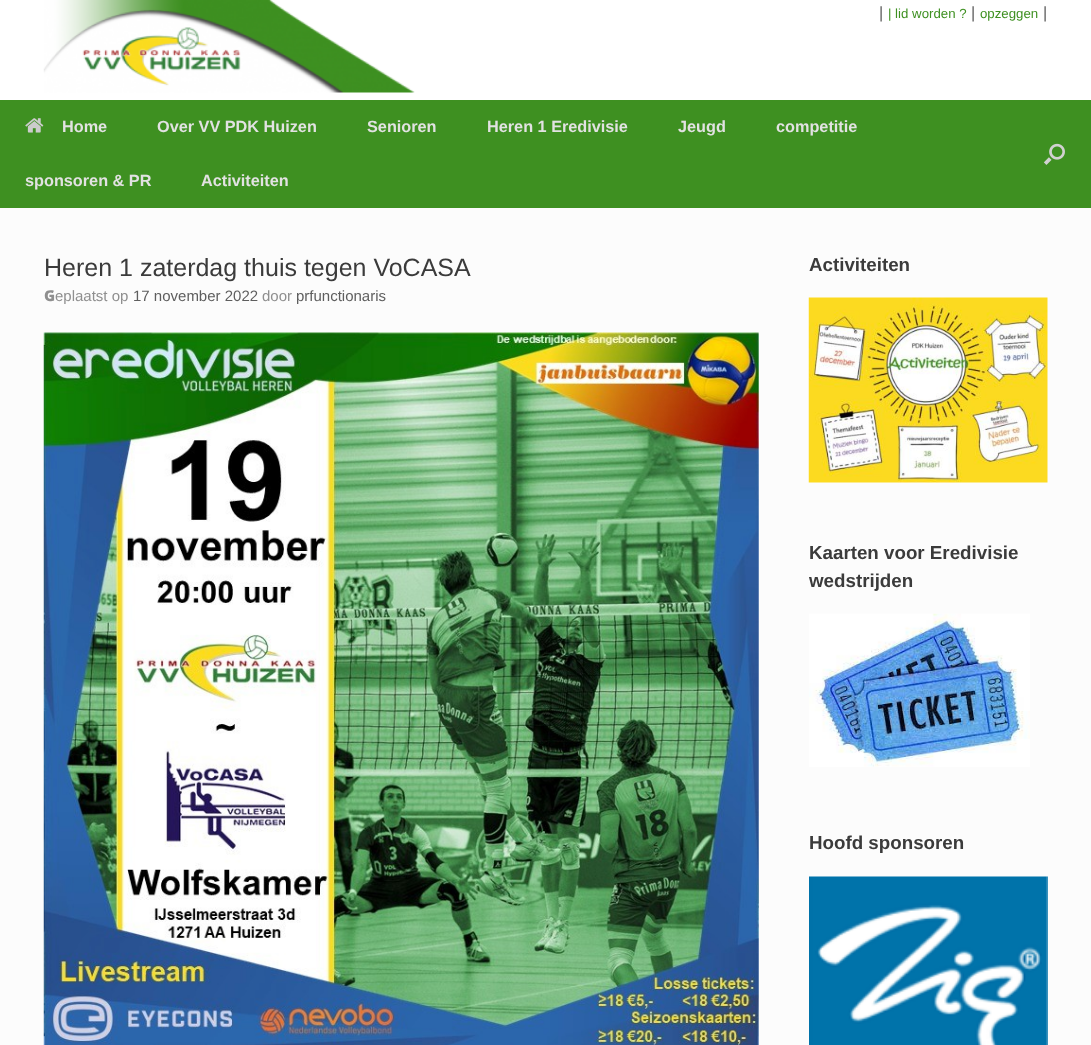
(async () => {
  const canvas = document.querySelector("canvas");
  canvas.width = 1091;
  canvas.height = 1045;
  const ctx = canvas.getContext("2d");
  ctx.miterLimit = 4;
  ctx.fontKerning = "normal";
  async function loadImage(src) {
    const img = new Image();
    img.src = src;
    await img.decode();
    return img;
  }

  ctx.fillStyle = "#ffffff";
  ctx.fillRect(0, 0, 1091, 1045);
  ctx.drawImage(await loadImage("img/1.png"), 43, 0, 372, 93);
  ctx.fillStyle = "#3e9021";
  ctx.fillRect(0, 100, 1091, 108);
  ctx.drawImage(await loadImage("img/2.png"), 25, 118, 19, 15);
  ctx.drawImage(await loadImage("img/3.png"), 1043, 143, 22, 22);
  ctx.fillStyle = "#fcfcfc";
  ctx.fillRect(0, 208, 1091, 837);
  ctx.drawImage(await loadImage("img/4.png"), 43, 332, 716, 713);
  ctx.drawImage(await loadImage("img/5.png"), 808, 297, 240, 186);
  ctx.drawImage(await loadImage("img/6.png"), 809, 613, 221, 154);
  ctx.drawImage(await loadImage("img/7.png"), 809, 876, 239, 169);
  ctx.font = "16.25px Liberation Sans";
  ctx.fillStyle = "#5e5e5e";
  ctx.fillText("|", 879, 18);
  ctx.font = "13.25px Liberation Sans";
  ctx.fillStyle = "#3e9021";
  ctx.fillText("| lid worden ?", 888, 18);
  ctx.font = "16.25px Liberation Sans";
  ctx.fillStyle = "#5e5e5e";
  ctx.fillText("|", 971, 18);
  ctx.font = "13.25px Liberation Sans";
  ctx.fillStyle = "#3e9021";
  ctx.fillText("opzeggen", 980, 18);
  ctx.font = "16.25px Liberation Sans";
  ctx.fillStyle = "#5e5e5e";
  ctx.fillText("|", 1043, 18);
  ctx.font = "bold 16.25px Liberation Sans";
  ctx.fillStyle = "#e2e2e2";
  for (const [text, x, y] of [
    ["Home", 62, 132],
    ["Over VV PDK Huizen", 157, 132],
    ["Senioren", 367, 132],
    ["Heren 1 Eredivisie", 487, 132],
    ["Jeugd", 678, 132],
    ["competitie", 776, 132],
    ["sponsoren & PR", 25, 186],
    ["Activiteiten", 201, 186],
  ]) {
    ctx.fillText(text, x, y);
  }
  ctx.font = "25px Liberation Sans";
  ctx.fillStyle = "#3b3b3b";
  ctx.fillText("Heren 1 zaterdag thuis tegen VoCASA", 44, 276);
  ctx.font = "900 15px Noto Sans";
  ctx.fillStyle = "#8f8f8f";
  ctx.fillText("G", 44, 301);
  ctx.font = "15px Liberation Sans";
  ctx.fillText("eplaatst op", 55, 301);
  ctx.fillStyle = "#5e5e5e";
  ctx.fillText("17 november 2022", 133, 301);
  ctx.fillStyle = "#8f8f8f";
  ctx.fillText("door", 262, 301);
  ctx.fillStyle = "#5e5e5e";
  ctx.fillText("prfunctionaris", 296, 301);
  ctx.font = "bold 18.75px Liberation Sans";
  ctx.fillStyle = "#3b3b3b";
  for (const [text, x, y] of [
    ["Activiteiten", 809, 271],
    ["Kaarten voor Eredivisie", 809, 559],
    ["wedstrijden", 809, 587],
    ["Hoofd sponsoren", 809, 849],
  ]) {
    ctx.fillText(text, x, y);
  }
})();
